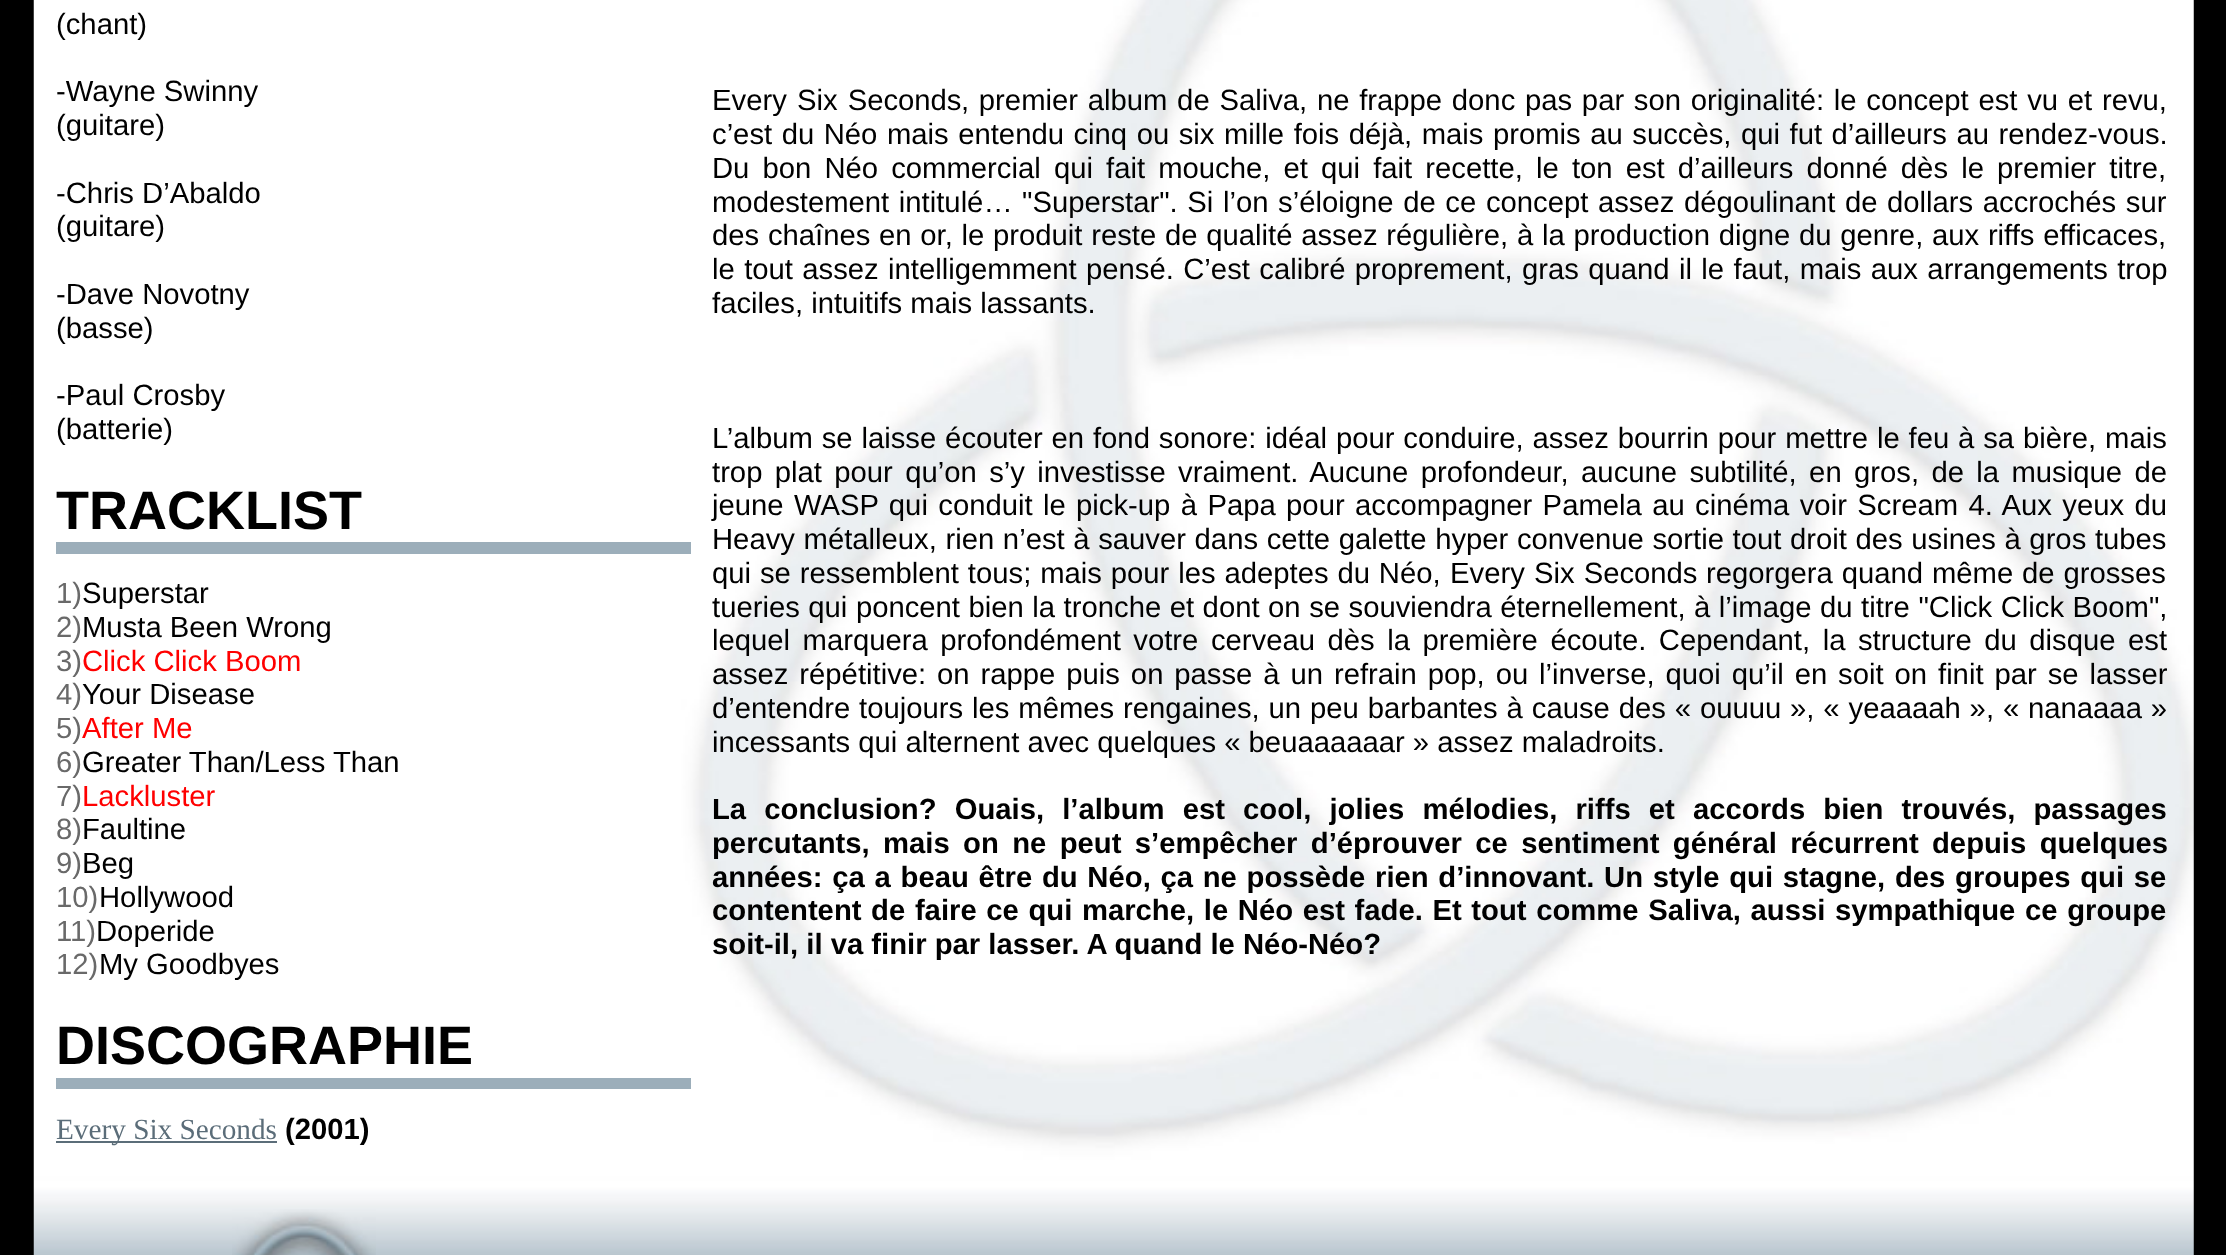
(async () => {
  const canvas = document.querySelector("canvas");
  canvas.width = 2226;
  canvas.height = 1255;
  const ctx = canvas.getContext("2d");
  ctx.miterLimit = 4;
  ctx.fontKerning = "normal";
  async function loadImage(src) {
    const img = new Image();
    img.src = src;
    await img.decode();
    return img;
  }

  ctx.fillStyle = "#000000";
  ctx.fillRect(0, 0, 2226, 1255);
  ctx.drawImage(await loadImage("img/1.png"), 33, 0, 2161, 1181);
  for (const [x, y, w, h, color] of [
    [56, 542, 635, 12, "#9caeba"],
    [56, 1078, 635, 11, "#9caeba"],
    [56, 1141, 221, 2, "#5b6d79"],
  ]) {
    ctx.fillStyle = color;
    ctx.fillRect(x, y, w, h);
  }
  ctx.drawImage(await loadImage("img/2.png"), 33, 1181, 2161, 74);
  ctx.drawImage(await loadImage("img/3.png"), 232, 1209, 144, 46);
  ctx.font = "29.25px Liberation Sans";
  ctx.fillStyle = "#000000";
  for (const [text, x, y] of [
    ["(chant)", 56, 34],
    ["-Wayne Swinny", 56, 101],
    ["(guitare)", 56, 135],
    ["-Chris D’Abaldo", 56, 203],
    ["(guitare)", 56, 236],
    ["-Dave Novotny", 56, 304],
    ["(basse)", 56, 338],
    ["-Paul Crosby", 56, 405],
    ["(batterie)", 56, 439],
  ]) {
    ctx.fillText(text, x, y);
  }
  ctx.font = "bold 54px Liberation Sans";
  ctx.fillText("TRACKLIST", 56, 529);
  ctx.font = "29.25px Liberation Sans";
  ctx.fillStyle = "#696969";
  ctx.fillText("1)", 56, 603);
  ctx.fillStyle = "#000000";
  ctx.fillText("Superstar", 82, 603);
  ctx.fillStyle = "#696969";
  ctx.fillText("2)", 56, 637);
  ctx.fillStyle = "#000000";
  ctx.fillText("Musta Been Wrong", 82, 637);
  ctx.fillStyle = "#696969";
  ctx.fillText("3)", 56, 671);
  ctx.fillStyle = "#ff0000";
  ctx.fillText("Click Click Boom", 82, 671);
  ctx.fillStyle = "#696969";
  ctx.fillText("4)", 56, 704);
  ctx.fillStyle = "#000000";
  ctx.fillText("Your Disease", 82, 704);
  ctx.fillStyle = "#696969";
  ctx.fillText("5)", 56, 738);
  ctx.fillStyle = "#ff0000";
  ctx.fillText("After Me", 82, 738);
  ctx.fillStyle = "#696969";
  ctx.fillText("6)", 56, 772);
  ctx.fillStyle = "#000000";
  ctx.fillText("Greater Than/Less Than", 82, 772);
  ctx.fillStyle = "#696969";
  ctx.fillText("7)", 56, 806);
  ctx.fillStyle = "#ff0000";
  ctx.fillText("Lackluster", 82, 806);
  ctx.fillStyle = "#696969";
  ctx.fillText("8)", 56, 839);
  ctx.fillStyle = "#000000";
  ctx.fillText("Faultine", 82, 839);
  ctx.fillStyle = "#696969";
  ctx.fillText("9)", 56, 873);
  ctx.fillStyle = "#000000";
  ctx.fillText("Beg", 82, 873);
  ctx.fillStyle = "#696969";
  ctx.fillText("10)", 56, 907);
  ctx.fillStyle = "#000000";
  ctx.fillText("Hollywood", 99, 907);
  ctx.fillStyle = "#696969";
  ctx.fillText("11)", 56, 941);
  ctx.fillStyle = "#000000";
  ctx.fillText("Doperide", 96, 941);
  ctx.fillStyle = "#696969";
  ctx.fillText("12)", 56, 974);
  ctx.fillStyle = "#000000";
  ctx.fillText("My Goodbyes", 99, 974);
  ctx.font = "bold 54px Liberation Sans";
  ctx.fillText("DISCOGRAPHIE", 56, 1064);
  ctx.font = "29.25px Liberation Serif";
  ctx.fillStyle = "#5b6d79";
  ctx.fillText("Every Six Seconds", 56, 1139);
  ctx.font = "bold 29.25px Liberation Sans";
  ctx.fillStyle = "#000000";
  ctx.fillText("(2001)", 285, 1139);
  ctx.wordSpacing = "2px";
  ctx.font = "29.25px Liberation Sans";
  ctx.fillText("Every Six Seconds", 712, 110);
  ctx.wordSpacing = "1.6px";
  ctx.fillText(", premier album de Saliva, ne frappe donc pas par son originalité: le concept est vu et revu,", 961, 110);
  ctx.wordSpacing = "1.4px";
  ctx.fillText("c’est du Néo mais entendu cinq ou six mille fois déjà, mais promis au succès, qui fut d’ailleurs au rendez-vous.", 712, 144);
  ctx.wordSpacing = "5px";
  ctx.fillText("Du bon Néo commercial qui fait mouche, et qui fait recette, le ton est d’ailleurs donné dès le premier titre,", 712, 178);
  ctx.wordSpacing = "1.5px";
  ctx.fillText("modestement intitulé…", 712, 212);
  ctx.fillText("\"Superstar\". Si l’on s’éloigne de ce concept assez dégoulinant de dollars accrochés sur", 1022, 212);
  ctx.wordSpacing = "0.6px";
  ctx.fillText("des chaînes en or, le produit reste de qualité assez régulière, à la production digne du genre, aux riffs efficaces,", 712, 245);
  ctx.wordSpacing = "1.25px";
  ctx.fillText("le tout assez intelligemment pensé. C’est calibré proprement, gras quand il le faut, mais aux arrangements trop", 712, 279);
  ctx.wordSpacing = "0px";
  ctx.fillText("faciles, intuitifs mais lassants.", 712, 313);
  ctx.wordSpacing = "0.75px";
  ctx.fillText("L’album se laisse écouter en fond sonore: idéal pour conduire, assez bourrin pour mettre le feu à sa bière, mais", 712, 448);
  ctx.wordSpacing = "4.25px";
  ctx.fillText("trop plat pour qu’on s’y investisse vraiment. Aucune profondeur, aucune subtilité, en gros, de la musique de", 712, 482);
  ctx.wordSpacing = "2.25px";
  ctx.fillText("jeune WASP qui conduit le pick-up à Papa pour accompagner Pamela au cinéma voir Scream 4. Aux yeux du", 712, 515);
  ctx.wordSpacing = "0.5px";
  ctx.fillText("Heavy métalleux, rien n’est à sauver dans cette galette hyper convenue sortie tout droit des usines à gros tubes", 712, 549);
  ctx.wordSpacing = "0.75px";
  ctx.fillText("qui se ressemblent tous; mais pour les adeptes du Néo,", 712, 583);
  ctx.wordSpacing = "1px";
  ctx.fillText("Every Six Seconds", 1450, 583);
  ctx.wordSpacing = "0.75px";
  ctx.fillText("regorgera quand même de grosses", 1706, 583);
  ctx.wordSpacing = "0.4px";
  ctx.fillText("tueries qui poncent bien la tronche et dont on se souviendra éternellement, à l’image du titre \"Click Click Boom\",", 712, 617);
  ctx.wordSpacing = "4.4px";
  ctx.fillText("lequel marquera profondément votre cerveau dès la première écoute. Cependant, la structure du disque est", 712, 650);
  ctx.wordSpacing = "2.8px";
  ctx.fillText("assez répétitive: on rappe puis on passe à un refrain pop, ou l’inverse, quoi qu’il en soit on finit par se lasser", 712, 684);
  ctx.wordSpacing = "0.75px";
  ctx.fillText("d’entendre toujours les mêmes rengaines, un peu barbantes à cause des « ouuuu », « yeaaaah », « nanaaaa »", 712, 718);
  ctx.wordSpacing = "0px";
  ctx.fillText("incessants qui alternent avec quelques « beuaaaaaar » assez maladroits.", 712, 752);
  ctx.wordSpacing = "10px";
  ctx.font = "bold 29.25px Liberation Sans";
  ctx.fillText("La conclusion? Ouais, l’album est cool, jolies mélodies, riffs et accords bien trouvés, passages", 712, 819);
  ctx.wordSpacing = "5.25px";
  ctx.fillText("percutants, mais on ne peut s’empêcher d’éprouver ce sentiment général récurrent depuis quelques", 712, 853);
  ctx.wordSpacing = "1.6px";
  ctx.fillText("années: ça a beau être du Néo, ça ne possède rien d’innovant. Un style qui stagne, des groupes qui se", 712, 887);
  ctx.wordSpacing = "1.5px";
  ctx.fillText("contentent de faire ce qui marche, le Néo est fade. Et tout comme Saliva, aussi sympathique ce groupe", 712, 920);
  ctx.wordSpacing = "0px";
  ctx.fillText("soit-il, il va finir par lasser. A quand le Néo-Néo?", 712, 954);
})();
